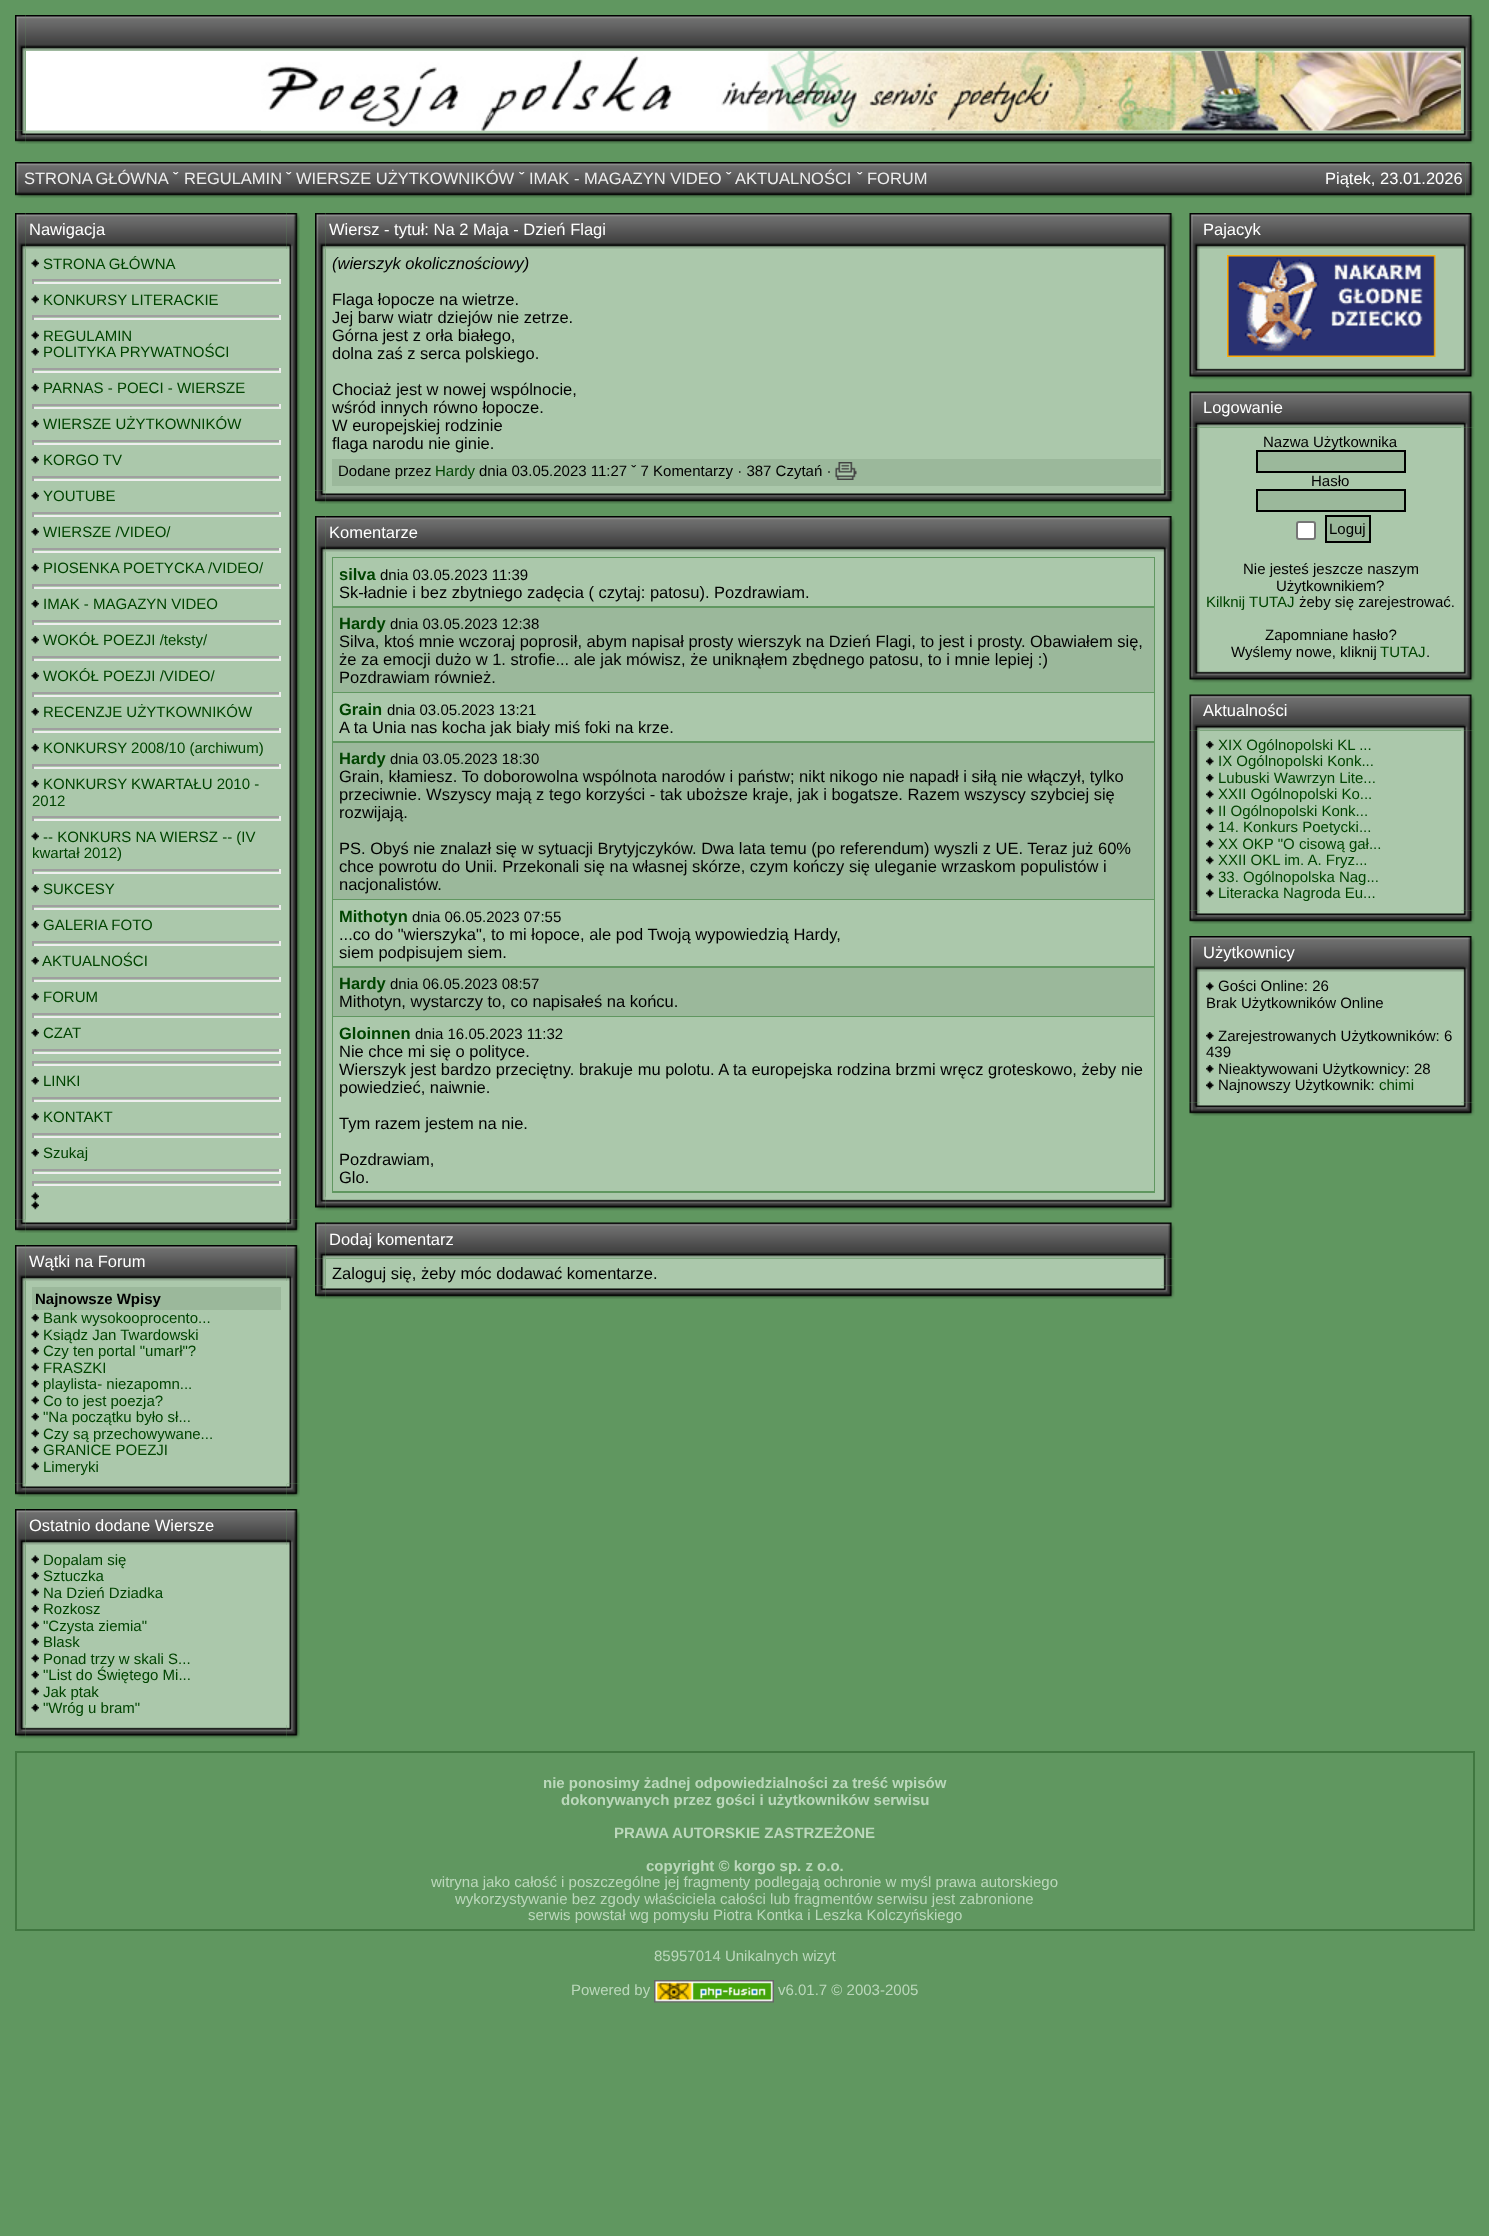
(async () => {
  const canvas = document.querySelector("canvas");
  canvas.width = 1489;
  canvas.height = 2236;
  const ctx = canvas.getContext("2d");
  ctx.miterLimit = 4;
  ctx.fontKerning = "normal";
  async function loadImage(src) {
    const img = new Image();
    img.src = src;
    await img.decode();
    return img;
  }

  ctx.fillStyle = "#609760";
  ctx.fillRect(0, 0, 1489, 2236);
  ctx.drawImage(await loadImage("img/1.png"), 15, 15, 11, 36);
  ctx.drawImage(await loadImage("img/2.png"), 25, 15, 1436, 36);
  ctx.drawImage(await loadImage("img/3.png"), 1461, 15, 14, 36);
  ctx.drawImage(await loadImage("img/4.png"), 15, 51, 11, 80);
  ctx.fillStyle = "#ffffff";
  ctx.fillRect(26, 51, 1435, 80);
  ctx.drawImage(await loadImage("img/7.png"), 15, 130, 11, 14);
  ctx.drawImage(await loadImage("img/8.png"), 25, 130, 1436, 14);
  ctx.drawImage(await loadImage("img/5.png"), 261, 51, 1200, 80);
  ctx.drawImage(await loadImage("img/6.png"), 1461, 51, 14, 80);
  ctx.drawImage(await loadImage("img/9.png"), 1461, 130, 14, 14);
  ctx.drawImage(await loadImage("img/10.png"), 15, 162, 6, 36);
  ctx.drawImage(await loadImage("img/11.png"), 21, 162, 1248, 36);
  ctx.drawImage(await loadImage("img/12.png"), 1269, 162, 197, 36);
  ctx.drawImage(await loadImage("img/13.png"), 1465, 162, 10, 36);
  ctx.drawImage(await loadImage("img/1.png"), 15, 213, 11, 36);
  ctx.drawImage(await loadImage("img/14.png"), 25, 213, 262, 36);
  ctx.drawImage(await loadImage("img/15.png"), 286, 213, 14, 36);
  ctx.drawImage(await loadImage("img/16.png"), 15, 249, 11, 971);
  ctx.fillStyle = "#abc8ab";
  ctx.fillRect(26, 249, 261, 971);
  ctx.drawImage(await loadImage("img/17.png"), 31, 259, 8, 9);
  for (const [x, y, w, h, color] of [
    [32, 279, 249, 2, "#9f9f9f"],
    [279, 279, 2, 5, "#eeeeee"],
    [32, 282, 249, 2, "#eeeeee"],
    [32, 279, 2, 5, "#9f9f9f"],
  ]) {
    ctx.fillStyle = color;
    ctx.fillRect(x, y, w, h);
  }
  ctx.drawImage(await loadImage("img/17.png"), 31, 295, 8, 9);
  for (const [x, y, w, h, color] of [
    [32, 315, 249, 2, "#9f9f9f"],
    [279, 315, 2, 5, "#eeeeee"],
    [32, 318, 249, 2, "#eeeeee"],
    [32, 315, 2, 5, "#9f9f9f"],
  ]) {
    ctx.fillStyle = color;
    ctx.fillRect(x, y, w, h);
  }
  ctx.drawImage(await loadImage("img/17.png"), 31, 331, 8, 9);
  ctx.drawImage(await loadImage("img/18.png"), 31, 348, 8, 8);
  for (const [x, y, w, h, color] of [
    [32, 368, 249, 2, "#9f9f9f"],
    [279, 368, 2, 5, "#eeeeee"],
    [32, 371, 249, 2, "#eeeeee"],
    [32, 368, 2, 5, "#9f9f9f"],
  ]) {
    ctx.fillStyle = color;
    ctx.fillRect(x, y, w, h);
  }
  ctx.drawImage(await loadImage("img/18.png"), 31, 384, 8, 8);
  for (const [x, y, w, h, color] of [
    [32, 404, 249, 2, "#9f9f9f"],
    [279, 404, 2, 5, "#eeeeee"],
    [32, 407, 249, 2, "#eeeeee"],
    [32, 404, 2, 5, "#9f9f9f"],
  ]) {
    ctx.fillStyle = color;
    ctx.fillRect(x, y, w, h);
  }
  ctx.drawImage(await loadImage("img/18.png"), 31, 420, 8, 8);
  for (const [x, y, w, h, color] of [
    [32, 440, 249, 2, "#9f9f9f"],
    [279, 440, 2, 5, "#eeeeee"],
    [32, 443, 249, 2, "#eeeeee"],
    [32, 440, 2, 5, "#9f9f9f"],
  ]) {
    ctx.fillStyle = color;
    ctx.fillRect(x, y, w, h);
  }
  ctx.drawImage(await loadImage("img/18.png"), 31, 456, 8, 8);
  for (const [x, y, w, h, color] of [
    [32, 476, 249, 2, "#9f9f9f"],
    [279, 476, 2, 5, "#eeeeee"],
    [32, 479, 249, 2, "#eeeeee"],
    [32, 476, 2, 5, "#9f9f9f"],
  ]) {
    ctx.fillStyle = color;
    ctx.fillRect(x, y, w, h);
  }
  ctx.drawImage(await loadImage("img/18.png"), 31, 492, 8, 8);
  for (const [x, y, w, h, color] of [
    [32, 512, 249, 2, "#9f9f9f"],
    [279, 512, 2, 5, "#eeeeee"],
    [32, 515, 249, 2, "#eeeeee"],
    [32, 512, 2, 5, "#9f9f9f"],
  ]) {
    ctx.fillStyle = color;
    ctx.fillRect(x, y, w, h);
  }
  ctx.drawImage(await loadImage("img/18.png"), 31, 528, 8, 8);
  for (const [x, y, w, h, color] of [
    [32, 548, 249, 2, "#9f9f9f"],
    [279, 548, 2, 5, "#eeeeee"],
    [32, 551, 249, 2, "#eeeeee"],
    [32, 548, 2, 5, "#9f9f9f"],
  ]) {
    ctx.fillStyle = color;
    ctx.fillRect(x, y, w, h);
  }
  ctx.drawImage(await loadImage("img/18.png"), 31, 564, 8, 8);
  for (const [x, y, w, h, color] of [
    [32, 584, 249, 2, "#9f9f9f"],
    [279, 584, 2, 5, "#eeeeee"],
    [32, 587, 249, 2, "#eeeeee"],
    [32, 584, 2, 5, "#9f9f9f"],
  ]) {
    ctx.fillStyle = color;
    ctx.fillRect(x, y, w, h);
  }
  ctx.drawImage(await loadImage("img/18.png"), 31, 600, 8, 8);
  for (const [x, y, w, h, color] of [
    [32, 620, 249, 2, "#9f9f9f"],
    [279, 620, 2, 5, "#eeeeee"],
    [32, 623, 249, 2, "#eeeeee"],
    [32, 620, 2, 5, "#9f9f9f"],
  ]) {
    ctx.fillStyle = color;
    ctx.fillRect(x, y, w, h);
  }
  ctx.drawImage(await loadImage("img/18.png"), 31, 636, 8, 8);
  for (const [x, y, w, h, color] of [
    [32, 656, 249, 2, "#9f9f9f"],
    [279, 656, 2, 5, "#eeeeee"],
    [32, 659, 249, 2, "#eeeeee"],
    [32, 656, 2, 5, "#9f9f9f"],
  ]) {
    ctx.fillStyle = color;
    ctx.fillRect(x, y, w, h);
  }
  ctx.drawImage(await loadImage("img/18.png"), 31, 672, 8, 8);
  for (const [x, y, w, h, color] of [
    [32, 692, 249, 2, "#9f9f9f"],
    [279, 692, 2, 5, "#eeeeee"],
    [32, 695, 249, 2, "#eeeeee"],
    [32, 692, 2, 5, "#9f9f9f"],
  ]) {
    ctx.fillStyle = color;
    ctx.fillRect(x, y, w, h);
  }
  ctx.drawImage(await loadImage("img/18.png"), 31, 708, 8, 8);
  for (const [x, y, w, h, color] of [
    [32, 728, 249, 2, "#9f9f9f"],
    [279, 728, 2, 5, "#eeeeee"],
    [32, 731, 249, 2, "#eeeeee"],
    [32, 728, 2, 5, "#9f9f9f"],
  ]) {
    ctx.fillStyle = color;
    ctx.fillRect(x, y, w, h);
  }
  ctx.drawImage(await loadImage("img/18.png"), 31, 744, 8, 8);
  for (const [x, y, w, h, color] of [
    [32, 764, 249, 2, "#9f9f9f"],
    [279, 764, 2, 5, "#eeeeee"],
    [32, 767, 249, 2, "#eeeeee"],
    [32, 764, 2, 5, "#9f9f9f"],
  ]) {
    ctx.fillStyle = color;
    ctx.fillRect(x, y, w, h);
  }
  ctx.drawImage(await loadImage("img/18.png"), 31, 780, 8, 8);
  for (const [x, y, w, h, color] of [
    [32, 816, 249, 2, "#9f9f9f"],
    [279, 816, 2, 5, "#eeeeee"],
    [32, 819, 249, 2, "#eeeeee"],
    [32, 816, 2, 5, "#9f9f9f"],
  ]) {
    ctx.fillStyle = color;
    ctx.fillRect(x, y, w, h);
  }
  ctx.drawImage(await loadImage("img/17.png"), 31, 832, 8, 9);
  for (const [x, y, w, h, color] of [
    [32, 869, 249, 2, "#9f9f9f"],
    [279, 869, 2, 5, "#eeeeee"],
    [32, 872, 249, 2, "#eeeeee"],
    [32, 869, 2, 5, "#9f9f9f"],
  ]) {
    ctx.fillStyle = color;
    ctx.fillRect(x, y, w, h);
  }
  ctx.drawImage(await loadImage("img/18.png"), 31, 885, 8, 8);
  for (const [x, y, w, h, color] of [
    [32, 905, 249, 2, "#9f9f9f"],
    [279, 905, 2, 5, "#eeeeee"],
    [32, 908, 249, 2, "#eeeeee"],
    [32, 905, 2, 5, "#9f9f9f"],
  ]) {
    ctx.fillStyle = color;
    ctx.fillRect(x, y, w, h);
  }
  ctx.drawImage(await loadImage("img/18.png"), 31, 921, 8, 8);
  for (const [x, y, w, h, color] of [
    [32, 941, 249, 2, "#9f9f9f"],
    [279, 941, 2, 5, "#eeeeee"],
    [32, 944, 249, 2, "#eeeeee"],
    [32, 941, 2, 5, "#9f9f9f"],
  ]) {
    ctx.fillStyle = color;
    ctx.fillRect(x, y, w, h);
  }
  ctx.drawImage(await loadImage("img/18.png"), 31, 957, 8, 8);
  for (const [x, y, w, h, color] of [
    [32, 977, 249, 2, "#9f9f9f"],
    [279, 977, 2, 5, "#eeeeee"],
    [32, 980, 249, 2, "#eeeeee"],
    [32, 977, 2, 5, "#9f9f9f"],
  ]) {
    ctx.fillStyle = color;
    ctx.fillRect(x, y, w, h);
  }
  ctx.drawImage(await loadImage("img/18.png"), 31, 993, 8, 8);
  for (const [x, y, w, h, color] of [
    [32, 1013, 249, 2, "#9f9f9f"],
    [279, 1013, 2, 5, "#eeeeee"],
    [32, 1016, 249, 2, "#eeeeee"],
    [32, 1013, 2, 5, "#9f9f9f"],
  ]) {
    ctx.fillStyle = color;
    ctx.fillRect(x, y, w, h);
  }
  ctx.drawImage(await loadImage("img/18.png"), 31, 1029, 8, 8);
  for (const [x, y, w, h, color] of [
    [32, 1049, 249, 2, "#9f9f9f"],
    [279, 1049, 2, 5, "#eeeeee"],
    [32, 1052, 249, 2, "#eeeeee"],
    [32, 1049, 2, 5, "#9f9f9f"],
    [32, 1061, 249, 2, "#9f9f9f"],
    [279, 1061, 2, 5, "#eeeeee"],
    [32, 1064, 249, 2, "#eeeeee"],
    [32, 1061, 2, 5, "#9f9f9f"],
  ]) {
    ctx.fillStyle = color;
    ctx.fillRect(x, y, w, h);
  }
  ctx.drawImage(await loadImage("img/18.png"), 31, 1077, 8, 8);
  for (const [x, y, w, h, color] of [
    [32, 1097, 249, 2, "#9f9f9f"],
    [279, 1097, 2, 5, "#eeeeee"],
    [32, 1100, 249, 2, "#eeeeee"],
    [32, 1097, 2, 5, "#9f9f9f"],
  ]) {
    ctx.fillStyle = color;
    ctx.fillRect(x, y, w, h);
  }
  ctx.drawImage(await loadImage("img/18.png"), 31, 1113, 8, 8);
  for (const [x, y, w, h, color] of [
    [32, 1133, 249, 2, "#9f9f9f"],
    [279, 1133, 2, 5, "#eeeeee"],
    [32, 1136, 249, 2, "#eeeeee"],
    [32, 1133, 2, 5, "#9f9f9f"],
  ]) {
    ctx.fillStyle = color;
    ctx.fillRect(x, y, w, h);
  }
  ctx.drawImage(await loadImage("img/18.png"), 31, 1149, 8, 8);
  for (const [x, y, w, h, color] of [
    [32, 1169, 249, 2, "#9f9f9f"],
    [279, 1169, 2, 5, "#eeeeee"],
    [32, 1172, 249, 2, "#eeeeee"],
    [32, 1169, 2, 5, "#9f9f9f"],
    [32, 1181, 249, 2, "#9f9f9f"],
    [279, 1181, 2, 5, "#eeeeee"],
    [32, 1184, 249, 2, "#eeeeee"],
    [32, 1181, 2, 5, "#9f9f9f"],
  ]) {
    ctx.fillStyle = color;
    ctx.fillRect(x, y, w, h);
  }
  ctx.drawImage(await loadImage("img/17.png"), 31, 1192, 8, 9);
  ctx.drawImage(await loadImage("img/17.png"), 31, 1201, 8, 9);
  ctx.drawImage(await loadImage("img/19.png"), 287, 249, 13, 971);
  ctx.drawImage(await loadImage("img/7.png"), 15, 1219, 11, 14);
  ctx.drawImage(await loadImage("img/20.png"), 25, 1219, 262, 14);
  ctx.drawImage(await loadImage("img/21.png"), 286, 1219, 14, 14);
  ctx.drawImage(await loadImage("img/1.png"), 15, 1245, 11, 36);
  ctx.drawImage(await loadImage("img/14.png"), 25, 1245, 262, 36);
  ctx.drawImage(await loadImage("img/15.png"), 286, 1245, 14, 36);
  ctx.drawImage(await loadImage("img/22.png"), 15, 1281, 11, 203);
  ctx.fillStyle = "#abc8ab";
  ctx.fillRect(26, 1281, 261, 203);
  ctx.fillStyle = "#9bb89b";
  ctx.fillRect(32, 1287, 249, 23);
  ctx.drawImage(await loadImage("img/18.png"), 31, 1314, 8, 8);
  ctx.drawImage(await loadImage("img/17.png"), 31, 1330, 8, 9);
  ctx.drawImage(await loadImage("img/18.png"), 31, 1347, 8, 8);
  ctx.drawImage(await loadImage("img/17.png"), 31, 1363, 8, 9);
  ctx.drawImage(await loadImage("img/18.png"), 31, 1380, 8, 8);
  ctx.drawImage(await loadImage("img/17.png"), 31, 1396, 8, 9);
  ctx.drawImage(await loadImage("img/18.png"), 31, 1413, 8, 8);
  ctx.drawImage(await loadImage("img/17.png"), 31, 1429, 8, 9);
  ctx.drawImage(await loadImage("img/18.png"), 31, 1446, 8, 8);
  ctx.drawImage(await loadImage("img/17.png"), 31, 1462, 8, 9);
  ctx.drawImage(await loadImage("img/23.png"), 287, 1281, 13, 203);
  ctx.drawImage(await loadImage("img/7.png"), 15, 1483, 11, 14);
  ctx.drawImage(await loadImage("img/20.png"), 25, 1483, 262, 14);
  ctx.drawImage(await loadImage("img/21.png"), 286, 1483, 14, 14);
  ctx.drawImage(await loadImage("img/1.png"), 15, 1509, 11, 36);
  ctx.drawImage(await loadImage("img/14.png"), 25, 1509, 262, 36);
  ctx.drawImage(await loadImage("img/15.png"), 286, 1509, 14, 36);
  ctx.drawImage(await loadImage("img/24.png"), 15, 1545, 11, 180);
  ctx.fillStyle = "#abc8ab";
  ctx.fillRect(26, 1545, 261, 180);
  ctx.drawImage(await loadImage("img/17.png"), 31, 1555, 8, 9);
  ctx.drawImage(await loadImage("img/18.png"), 31, 1572, 8, 8);
  ctx.drawImage(await loadImage("img/17.png"), 31, 1588, 8, 9);
  ctx.drawImage(await loadImage("img/18.png"), 31, 1605, 8, 8);
  ctx.drawImage(await loadImage("img/17.png"), 31, 1621, 8, 9);
  ctx.drawImage(await loadImage("img/18.png"), 31, 1638, 8, 8);
  ctx.drawImage(await loadImage("img/17.png"), 31, 1654, 8, 9);
  ctx.drawImage(await loadImage("img/18.png"), 31, 1671, 8, 8);
  ctx.drawImage(await loadImage("img/17.png"), 31, 1687, 8, 9);
  ctx.drawImage(await loadImage("img/18.png"), 31, 1704, 8, 8);
  ctx.drawImage(await loadImage("img/25.png"), 287, 1545, 13, 180);
  ctx.drawImage(await loadImage("img/26.png"), 15, 1725, 11, 14);
  ctx.drawImage(await loadImage("img/27.png"), 25, 1725, 262, 14);
  ctx.drawImage(await loadImage("img/28.png"), 286, 1725, 14, 14);
  ctx.drawImage(await loadImage("img/29.png"), 315, 213, 11, 36);
  ctx.drawImage(await loadImage("img/30.png"), 325, 213, 836, 36);
  ctx.drawImage(await loadImage("img/31.png"), 1161, 213, 14, 36);
  ctx.drawImage(await loadImage("img/32.png"), 315, 249, 11, 242);
  ctx.fillRect(326, 249, 835, 242);
  ctx.fillStyle = "#9bb89b";
  ctx.fillRect(332, 459, 829, 27);
  ctx.drawImage(await loadImage("img/33.png"), 835, 462, 22, 18);
  ctx.drawImage(await loadImage("img/34.png"), 1161, 249, 14, 242);
  ctx.drawImage(await loadImage("img/35.png"), 315, 490, 11, 14);
  ctx.drawImage(await loadImage("img/36.png"), 325, 490, 836, 14);
  ctx.drawImage(await loadImage("img/37.png"), 1161, 490, 14, 14);
  ctx.drawImage(await loadImage("img/29.png"), 315, 516, 11, 36);
  ctx.drawImage(await loadImage("img/30.png"), 325, 516, 836, 36);
  ctx.drawImage(await loadImage("img/31.png"), 1161, 516, 14, 36);
  ctx.drawImage(await loadImage("img/38.png"), 315, 552, 11, 645);
  for (const [x, y, w, h, color] of [
    [326, 552, 835, 645, "#abc8ab"],
    [332, 557, 823, 636, "#609760"],
    [333, 558, 821, 48, "#abc8ab"],
    [333, 608, 821, 84, "#9bb89b"],
    [333, 693, 821, 48, "#abc8ab"],
    [333, 743, 821, 156, "#9bb89b"],
    [333, 900, 821, 66, "#abc8ab"],
    [333, 968, 821, 48, "#9bb89b"],
    [333, 1017, 821, 174, "#abc8ab"],
  ]) {
    ctx.fillStyle = color;
    ctx.fillRect(x, y, w, h);
  }
  ctx.drawImage(await loadImage("img/39.png"), 1161, 552, 14, 645);
  ctx.drawImage(await loadImage("img/40.png"), 315, 1197, 11, 14);
  ctx.drawImage(await loadImage("img/41.png"), 325, 1197, 836, 14);
  ctx.drawImage(await loadImage("img/42.png"), 1161, 1197, 14, 14);
  ctx.drawImage(await loadImage("img/43.png"), 315, 1222, 11, 37);
  ctx.drawImage(await loadImage("img/44.png"), 325, 1222, 836, 37);
  ctx.drawImage(await loadImage("img/45.png"), 1161, 1222, 14, 37);
  ctx.drawImage(await loadImage("img/46.png"), 315, 1258, 11, 28);
  ctx.fillRect(326, 1259, 835, 27);
  ctx.drawImage(await loadImage("img/47.png"), 1161, 1258, 14, 28);
  ctx.drawImage(await loadImage("img/35.png"), 315, 1285, 11, 14);
  ctx.drawImage(await loadImage("img/36.png"), 325, 1285, 836, 14);
  ctx.drawImage(await loadImage("img/37.png"), 1161, 1285, 14, 14);
  ctx.drawImage(await loadImage("img/48.png"), 1189, 213, 11, 36);
  ctx.drawImage(await loadImage("img/49.png"), 1200, 213, 261, 36);
  ctx.drawImage(await loadImage("img/3.png"), 1461, 213, 14, 36);
  ctx.drawImage(await loadImage("img/50.png"), 1189, 249, 11, 117);
  ctx.fillRect(1200, 249, 261, 117);
  ctx.drawImage(await loadImage("img/51.png"), 1227, 255, 209, 102);
  ctx.drawImage(await loadImage("img/52.png"), 1461, 249, 14, 117);
  ctx.drawImage(await loadImage("img/53.png"), 1189, 366, 11, 14);
  ctx.drawImage(await loadImage("img/54.png"), 1200, 366, 261, 14);
  ctx.drawImage(await loadImage("img/55.png"), 1461, 366, 14, 14);
  ctx.drawImage(await loadImage("img/56.png"), 1189, 391, 11, 37);
  ctx.drawImage(await loadImage("img/57.png"), 1200, 391, 261, 37);
  ctx.drawImage(await loadImage("img/58.png"), 1461, 391, 14, 37);
  ctx.drawImage(await loadImage("img/59.png"), 1189, 427, 11, 242);
  ctx.fillRect(1200, 428, 261, 241);
  ctx.fillStyle = "#9bb89b";
  ctx.beginPath();
  ctx.rect(1257, 490, 148, 21);
  ctx.fill();
  ctx.strokeStyle = "#000000";
  ctx.lineWidth = 2;
  ctx.stroke();
  ctx.fillStyle = "#ffffff";
  ctx.beginPath();
  ctx.roundRect(1297, 522, 18, 17, 2);
  ctx.fill();
  ctx.strokeStyle = "#767676";
  ctx.stroke();
  ctx.fillStyle = "#9bb89b";
  ctx.beginPath();
  ctx.rect(1326, 516, 44, 26);
  ctx.fill();
  ctx.strokeStyle = "#000000";
  ctx.stroke();
  ctx.drawImage(await loadImage("img/60.png"), 1461, 427, 14, 242);
  ctx.drawImage(await loadImage("img/53.png"), 1189, 669, 11, 14);
  ctx.drawImage(await loadImage("img/54.png"), 1200, 669, 261, 14);
  ctx.drawImage(await loadImage("img/55.png"), 1461, 669, 14, 14);
  ctx.drawImage(await loadImage("img/56.png"), 1189, 694, 11, 37);
  ctx.drawImage(await loadImage("img/57.png"), 1200, 694, 261, 37);
  ctx.drawImage(await loadImage("img/58.png"), 1461, 694, 14, 37);
  ctx.drawImage(await loadImage("img/61.png"), 1189, 730, 11, 181);
  ctx.fillStyle = "#abc8ab";
  ctx.fillRect(1200, 731, 261, 180);
  ctx.drawImage(await loadImage("img/62.png"), 1206, 741, 8, 8);
  ctx.drawImage(await loadImage("img/63.png"), 1206, 757, 8, 9);
  ctx.drawImage(await loadImage("img/62.png"), 1206, 774, 8, 8);
  ctx.drawImage(await loadImage("img/63.png"), 1206, 790, 8, 9);
  ctx.drawImage(await loadImage("img/62.png"), 1206, 807, 8, 8);
  ctx.drawImage(await loadImage("img/63.png"), 1206, 823, 8, 9);
  ctx.drawImage(await loadImage("img/62.png"), 1206, 840, 8, 8);
  ctx.drawImage(await loadImage("img/63.png"), 1206, 856, 8, 9);
  ctx.drawImage(await loadImage("img/62.png"), 1206, 873, 8, 8);
  ctx.drawImage(await loadImage("img/63.png"), 1206, 889, 8, 9);
  ctx.drawImage(await loadImage("img/64.png"), 1461, 730, 14, 181);
  ctx.drawImage(await loadImage("img/65.png"), 1189, 910, 11, 14);
  ctx.drawImage(await loadImage("img/66.png"), 1200, 911, 261, 13);
  ctx.drawImage(await loadImage("img/9.png"), 1461, 910, 14, 14);
  ctx.drawImage(await loadImage("img/48.png"), 1189, 936, 11, 36);
  ctx.drawImage(await loadImage("img/49.png"), 1200, 936, 261, 36);
  ctx.drawImage(await loadImage("img/3.png"), 1461, 936, 14, 36);
  ctx.drawImage(await loadImage("img/67.png"), 1189, 972, 11, 131);
  ctx.fillRect(1200, 972, 261, 131);
  ctx.drawImage(await loadImage("img/63.png"), 1206, 982, 8, 9);
  ctx.drawImage(await loadImage("img/62.png"), 1206, 1032, 8, 8);
  ctx.drawImage(await loadImage("img/62.png"), 1206, 1065, 8, 8);
  ctx.drawImage(await loadImage("img/63.png"), 1206, 1081, 8, 9);
  ctx.drawImage(await loadImage("img/68.png"), 1461, 972, 14, 131);
  ctx.drawImage(await loadImage("img/65.png"), 1189, 1102, 11, 14);
  ctx.drawImage(await loadImage("img/66.png"), 1200, 1103, 261, 13);
  ctx.drawImage(await loadImage("img/9.png"), 1461, 1102, 14, 14);
  ctx.strokeStyle = "#407740";
  ctx.strokeRect(16, 1752, 1458, 178);
  ctx.drawImage(await loadImage("img/69.png"), 654, 1980, 120, 23);
  ctx.wordSpacing = "-1px";
  ctx.font = "16.5px Liberation Sans";
  ctx.fillStyle = "#eeeeee";
  ctx.fillText("STRONA GŁÓWNA", 24, 184);
  ctx.wordSpacing = "0px";
  ctx.fillStyle = "#ffffff";
  ctx.fillText("ˇ", 173, 184);
  ctx.fillStyle = "#eeeeee";
  ctx.fillText("REGULAMIN", 184, 184);
  ctx.fillStyle = "#ffffff";
  ctx.fillText("ˇ", 286, 184);
  ctx.fillStyle = "#eeeeee";
  ctx.fillText("WIERSZE UŻYTKOWNIKÓW", 296, 184);
  ctx.fillStyle = "#ffffff";
  ctx.fillText("ˇ", 519, 184);
  ctx.fillStyle = "#eeeeee";
  ctx.fillText("IMAK - MAGAZYN VIDEO", 529, 184);
  ctx.fillStyle = "#ffffff";
  ctx.fillText("ˇ", 726, 184);
  ctx.fillStyle = "#eeeeee";
  ctx.fillText("AKTUALNOŚCI", 735, 184);
  ctx.fillStyle = "#ffffff";
  ctx.fillText("ˇ", 857, 184);
  ctx.fillStyle = "#eeeeee";
  ctx.fillText("FORUM", 867, 184);
  ctx.fillStyle = "#ffffff";
  ctx.fillText("Piątek, 23.01.2026", 1325, 184);
  ctx.fillText("Nawigacja", 29, 235);
  ctx.font = "15px Liberation Sans";
  ctx.fillStyle = "#004400";
  for (const [text, x, y] of [
    ["STRONA GŁÓWNA", 43, 269],
    ["KONKURSY LITERACKIE", 43, 305],
    ["REGULAMIN", 43, 341],
    ["POLITYKA PRYWATNOŚCI", 43, 357],
    ["PARNAS - POECI - WIERSZE", 43, 393],
    ["WIERSZE UŻYTKOWNIKÓW", 43, 429],
    ["KORGO TV", 43, 465],
    ["YOUTUBE", 43, 501],
    ["WIERSZE /VIDEO/", 43, 537],
    ["PIOSENKA POETYCKA /VIDEO/", 43, 573],
    ["IMAK - MAGAZYN VIDEO", 43, 609],
    ["WOKÓŁ POEZJI /teksty/", 43, 645],
    ["WOKÓŁ POEZJI /VIDEO/", 43, 681],
    ["RECENZJE UŻYTKOWNIKÓW", 43, 717],
    ["KONKURSY 2008/10 (archiwum)", 43, 753],
    ["KONKURSY KWARTAŁU 2010 -", 43, 789],
    ["2012", 32, 806],
    ["-- KONKURS NA WIERSZ -- (IV", 43, 842],
    ["kwartał 2012)", 32, 858],
    ["SUKCESY", 43, 894],
    ["GALERIA FOTO", 43, 930],
    ["AKTUALNOŚCI", 42, 966],
    ["FORUM", 43, 1002],
    ["CZAT", 43, 1038],
    ["LINKI", 43, 1086],
    ["KONTAKT", 43, 1122],
    ["Szukaj", 43, 1158],
  ]) {
    ctx.fillText(text, x, y);
  }
  ctx.font = "16.5px Liberation Sans";
  ctx.fillStyle = "#ffffff";
  ctx.fillText("Wątki na Forum", 29, 1267);
  ctx.font = "bold 15px Liberation Sans";
  ctx.fillStyle = "#000000";
  ctx.fillText("Najnowsze Wpisy", 35, 1304);
  ctx.font = "15px Liberation Sans";
  ctx.fillStyle = "#004400";
  for (const [text, x, y] of [
    ["Bank wysokooprocento...", 43, 1323],
    ["Ksiądz Jan Twardowski", 43, 1340],
    ["Czy ten portal \"umarł\"?", 43, 1356],
    ["FRASZKI", 43, 1373],
    ["playlista- niezapomn...", 43, 1389],
    ["Co to jest poezja?", 43, 1406],
    ["\"Na początku było sł...", 43, 1422],
    ["Czy są przechowywane...", 43, 1439],
    ["GRANICE POEZJI", 43, 1455],
    ["Limeryki", 43, 1472],
  ]) {
    ctx.fillText(text, x, y);
  }
  ctx.font = "16.5px Liberation Sans";
  ctx.fillStyle = "#ffffff";
  ctx.fillText("Ostatnio dodane Wiersze", 29, 1531);
  ctx.font = "15px Liberation Sans";
  ctx.fillStyle = "#004400";
  for (const [text, x, y] of [
    ["Dopalam się", 43, 1565],
    ["Sztuczka", 43, 1581],
    ["Na Dzień Dziadka", 43, 1598],
    ["Rozkosz", 43, 1614],
    ["\"Czysta ziemia\"", 43, 1631],
    ["Blask", 43, 1647],
    ["Ponad trzy w skali S...", 43, 1664],
    ["\"List do Świętego Mi...", 43, 1680],
    ["Jak ptak", 43, 1697],
    ["\"Wróg u bram\"", 43, 1713],
  ]) {
    ctx.fillText(text, x, y);
  }
  ctx.font = "16.5px Liberation Sans";
  ctx.fillStyle = "#ffffff";
  ctx.fillText("Wiersz - tytuł: Na 2 Maja - Dzień Flagi", 329, 235);
  ctx.font = "italic 16.5px Liberation Sans";
  ctx.fillStyle = "#000000";
  ctx.fillText("(wierszyk okolicznościowy)", 332, 269);
  ctx.font = "16.5px Liberation Sans";
  for (const [text, x, y] of [
    ["Flaga łopocze na wietrze.", 332, 305],
    ["Jej barw wiatr dziejów nie zetrze.", 332, 323],
    ["Górna jest z orła białego,", 332, 341],
    ["dolna zaś z serca polskiego.", 332, 359],
    ["Chociaż jest w nowej wspólnocie,", 332, 395],
    ["wśród innych równo łopocze.", 332, 413],
    ["W europejskiej rodzinie", 332, 431],
    ["flaga narodu nie ginie.", 332, 449],
  ]) {
    ctx.fillText(text, x, y);
  }
  ctx.font = "15px Liberation Sans";
  ctx.fillText("Dodane przez", 338, 476);
  ctx.fillStyle = "#004400";
  ctx.fillText("Hardy", 435, 476);
  ctx.fillStyle = "#000000";
  ctx.fillText("dnia 03.05.2023 11:27 ˇ 7 Komentarzy · 387 Czytań ·", 479, 476);
  ctx.font = "16.5px Liberation Sans";
  ctx.fillStyle = "#ffffff";
  ctx.fillText("Komentarze", 329, 538);
  ctx.font = "bold 16.5px Liberation Sans";
  ctx.fillStyle = "#004400";
  ctx.fillText("silva", 339, 580);
  ctx.font = "15px Liberation Sans";
  ctx.fillStyle = "#000000";
  ctx.fillText("dnia 03.05.2023 11:39", 380, 580);
  ctx.font = "16.5px Liberation Sans";
  ctx.fillText("Sk-ładnie i bez zbytniego zadęcia ( czytaj: patosu). Pozdrawiam.", 339, 598);
  ctx.font = "bold 16.5px Liberation Sans";
  ctx.fillStyle = "#004400";
  ctx.fillText("Hardy", 339, 629);
  ctx.font = "15px Liberation Sans";
  ctx.fillStyle = "#000000";
  ctx.fillText("dnia 03.05.2023 12:38", 390, 629);
  ctx.font = "16.5px Liberation Sans";
  for (const [text, x, y] of [
    ["Silva, ktoś mnie wczoraj poprosił, abym napisał prosty wierszyk na Dzień Flagi, to jest i prosty. Obawiałem się,", 339, 647],
    ["że za emocji dużo w 1. strofie... ale jak mówisz, że uniknąłem zbędnego patosu, to i mnie lepiej :)", 339, 665],
    ["Pozdrawiam również.", 339, 683],
  ]) {
    ctx.fillText(text, x, y);
  }
  ctx.font = "bold 16.5px Liberation Sans";
  ctx.fillStyle = "#004400";
  ctx.fillText("Grain", 339, 715);
  ctx.font = "15px Liberation Sans";
  ctx.fillStyle = "#000000";
  ctx.fillText("dnia 03.05.2023 13:21", 387, 715);
  ctx.font = "16.5px Liberation Sans";
  ctx.fillText("A ta Unia nas kocha jak biały miś foki na krze.", 339, 733);
  ctx.font = "bold 16.5px Liberation Sans";
  ctx.fillStyle = "#004400";
  ctx.fillText("Hardy", 339, 764);
  ctx.font = "15px Liberation Sans";
  ctx.fillStyle = "#000000";
  ctx.fillText("dnia 03.05.2023 18:30", 390, 764);
  ctx.font = "16.5px Liberation Sans";
  for (const [text, x, y] of [
    ["Grain, kłamiesz. To doborowolna wspólnota narodów i państw; nikt nikogo nie napadł i siłą nie włączył, tylko", 339, 782],
    ["przeciwnie. Wszyscy mają z tego korzyści - tak uboższe kraje, jak i bogatsze. Razem wszyscy szybciej się", 339, 800],
    ["rozwijają.", 339, 818],
    ["PS. Obyś nie znalazł się w sytuacji Brytyjczyków. Dwa lata temu (po referendum) wyszli z UE. Teraz już 60%", 339, 854],
    ["chce powrotu do Unii. Przekonali się na własnej skórze, czym kończy się uleganie wrzaskom populistów i", 339, 872],
    ["nacjonalistów.", 339, 890],
  ]) {
    ctx.fillText(text, x, y);
  }
  ctx.font = "bold 16.5px Liberation Sans";
  ctx.fillStyle = "#004400";
  ctx.fillText("Mithotyn", 339, 922);
  ctx.font = "15px Liberation Sans";
  ctx.fillStyle = "#000000";
  ctx.fillText("dnia 06.05.2023 07:55", 412, 922);
  ctx.font = "16.5px Liberation Sans";
  ctx.fillText("...co do \"wierszyka\", to mi łopoce, ale pod Twoją wypowiedzią Hardy,", 339, 940);
  ctx.fillText("siem podpisujem siem.", 339, 958);
  ctx.font = "bold 16.5px Liberation Sans";
  ctx.fillStyle = "#004400";
  ctx.fillText("Hardy", 339, 989);
  ctx.font = "15px Liberation Sans";
  ctx.fillStyle = "#000000";
  ctx.fillText("dnia 06.05.2023 08:57", 390, 989);
  ctx.font = "16.5px Liberation Sans";
  ctx.fillText("Mithotyn, wystarczy to, co napisałeś na końcu.", 339, 1007);
  ctx.font = "bold 16.5px Liberation Sans";
  ctx.fillStyle = "#004400";
  ctx.fillText("Gloinnen", 339, 1039);
  ctx.font = "15px Liberation Sans";
  ctx.fillStyle = "#000000";
  ctx.fillText("dnia 16.05.2023 11:32", 415, 1039);
  ctx.font = "16.5px Liberation Sans";
  for (const [text, x, y] of [
    ["Nie chce mi się o polityce.", 339, 1057],
    ["Wierszyk jest bardzo przeciętny. brakuje mu polotu. A ta europejska rodzina brzmi wręcz groteskowo, żeby nie", 339, 1075],
    ["powiedzieć, naiwnie.", 339, 1093],
    ["Tym razem jestem na nie.", 339, 1129],
    ["Pozdrawiam,", 339, 1165],
    ["Glo.", 339, 1183],
  ]) {
    ctx.fillText(text, x, y);
  }
  ctx.fillStyle = "#ffffff";
  ctx.fillText("Dodaj komentarz", 329, 1245);
  ctx.fillStyle = "#000000";
  ctx.fillText("Zaloguj się, żeby móc dodawać komentarze.", 332, 1279);
  ctx.fillStyle = "#ffffff";
  ctx.fillText("Pajacyk", 1203, 235);
  ctx.fillText("Logowanie", 1203, 413);
  ctx.font = "15px Liberation Sans";
  ctx.fillStyle = "#000000";
  ctx.fillText("Nazwa Użytkownika", 1263, 447);
  ctx.fillStyle = "#9bb89b";
  ctx.beginPath();
  ctx.rect(1257, 451, 148, 21);
  ctx.fill();
  ctx.strokeStyle = "#000000";
  ctx.stroke();
  ctx.fillStyle = "#000000";
  for (const [text, x, y] of [
    ["Hasło", 1311, 486],
    ["Loguj", 1329, 534],
    ["Nie jesteś jeszcze naszym", 1243, 574],
    ["Użytkownikiem?", 1276, 591],
  ]) {
    ctx.fillText(text, x, y);
  }
  ctx.fillStyle = "#004400";
  ctx.fillText("Kilknij TUTAJ", 1206, 607);
  ctx.fillStyle = "#000000";
  for (const [text, x, y] of [
    ["żeby się zarejestrować.", 1299, 607],
    ["Zapomniane hasło?", 1265, 640],
    ["Wyślemy nowe, kliknij", 1231, 657],
  ]) {
    ctx.fillText(text, x, y);
  }
  ctx.fillStyle = "#004400";
  ctx.fillText("TUTAJ", 1380, 657);
  ctx.fillStyle = "#000000";
  ctx.fillText(".", 1426, 657);
  ctx.font = "16.5px Liberation Sans";
  ctx.fillStyle = "#ffffff";
  ctx.fillText("Aktualności", 1203, 716);
  ctx.font = "15px Liberation Sans";
  ctx.fillStyle = "#004400";
  for (const [text, x, y] of [
    ["XIX Ogólnopolski KL ...", 1218, 750],
    ["IX Ogólnopolski Konk...", 1218, 766],
    ["Lubuski Wawrzyn Lite...", 1218, 783],
    ["XXII Ogólnopolski Ko...", 1218, 799],
    ["II Ogólnopolski Konk...", 1218, 816],
    ["14. Konkurs Poetycki...", 1218, 832],
    ["XX OKP \"O cisową gał...", 1218, 849],
    ["XXII OKL im. A. Fryz...", 1218, 865],
    ["33. Ogólnopolska Nag...", 1218, 882],
    ["Literacka Nagroda Eu...", 1218, 898],
  ]) {
    ctx.fillText(text, x, y);
  }
  ctx.font = "16.5px Liberation Sans";
  ctx.fillStyle = "#ffffff";
  ctx.fillText("Użytkownicy", 1203, 958);
  ctx.font = "15px Liberation Sans";
  ctx.fillStyle = "#000000";
  for (const [text, x, y] of [
    ["Gości Online: 26", 1218, 991],
    ["Brak Użytkowników Online", 1206, 1008],
    ["Zarejestrowanych Użytkowników: 6", 1218, 1041],
    ["439", 1206, 1057],
    ["Nieaktywowani Użytkownicy: 28", 1218, 1074],
    ["Najnowszy Użytkownik:", 1218, 1090],
  ]) {
    ctx.fillText(text, x, y);
  }
  ctx.fillStyle = "#004400";
  ctx.fillText("chimi", 1379, 1090);
  ctx.font = "bold 15px Liberation Sans";
  ctx.fillStyle = "#bbd8bb";
  for (const [text, x, y] of [
    ["nie ponosimy żadnej odpowiedzialności za treść wpisów", 543, 1788],
    ["dokonywanych przez gości i użytkowników serwisu", 561, 1805],
    ["PRAWA AUTORSKIE ZASTRZEŻONE", 614, 1838],
    ["copyright © korgo sp. z o.o.", 646, 1871],
  ]) {
    ctx.fillText(text, x, y);
  }
  ctx.font = "15px Liberation Sans";
  for (const [text, x, y] of [
    ["witryna jako całość i poszczególne jej fragmenty podlegają ochronie w myśl prawa autorskiego", 431, 1887],
    ["wykorzystywanie bez zgody właściciela całości lub fragmentów serwisu jest zabronione", 455, 1904],
    ["serwis powstał wg pomysłu Piotra Kontka i Leszka Kolczyńskiego", 528, 1920],
    ["85957014 Unikalnych wizyt", 654, 1961],
    ["Powered by", 571, 1995],
    ["v6.01.7 © 2003-2005", 778, 1995],
  ]) {
    ctx.fillText(text, x, y);
  }
})();
